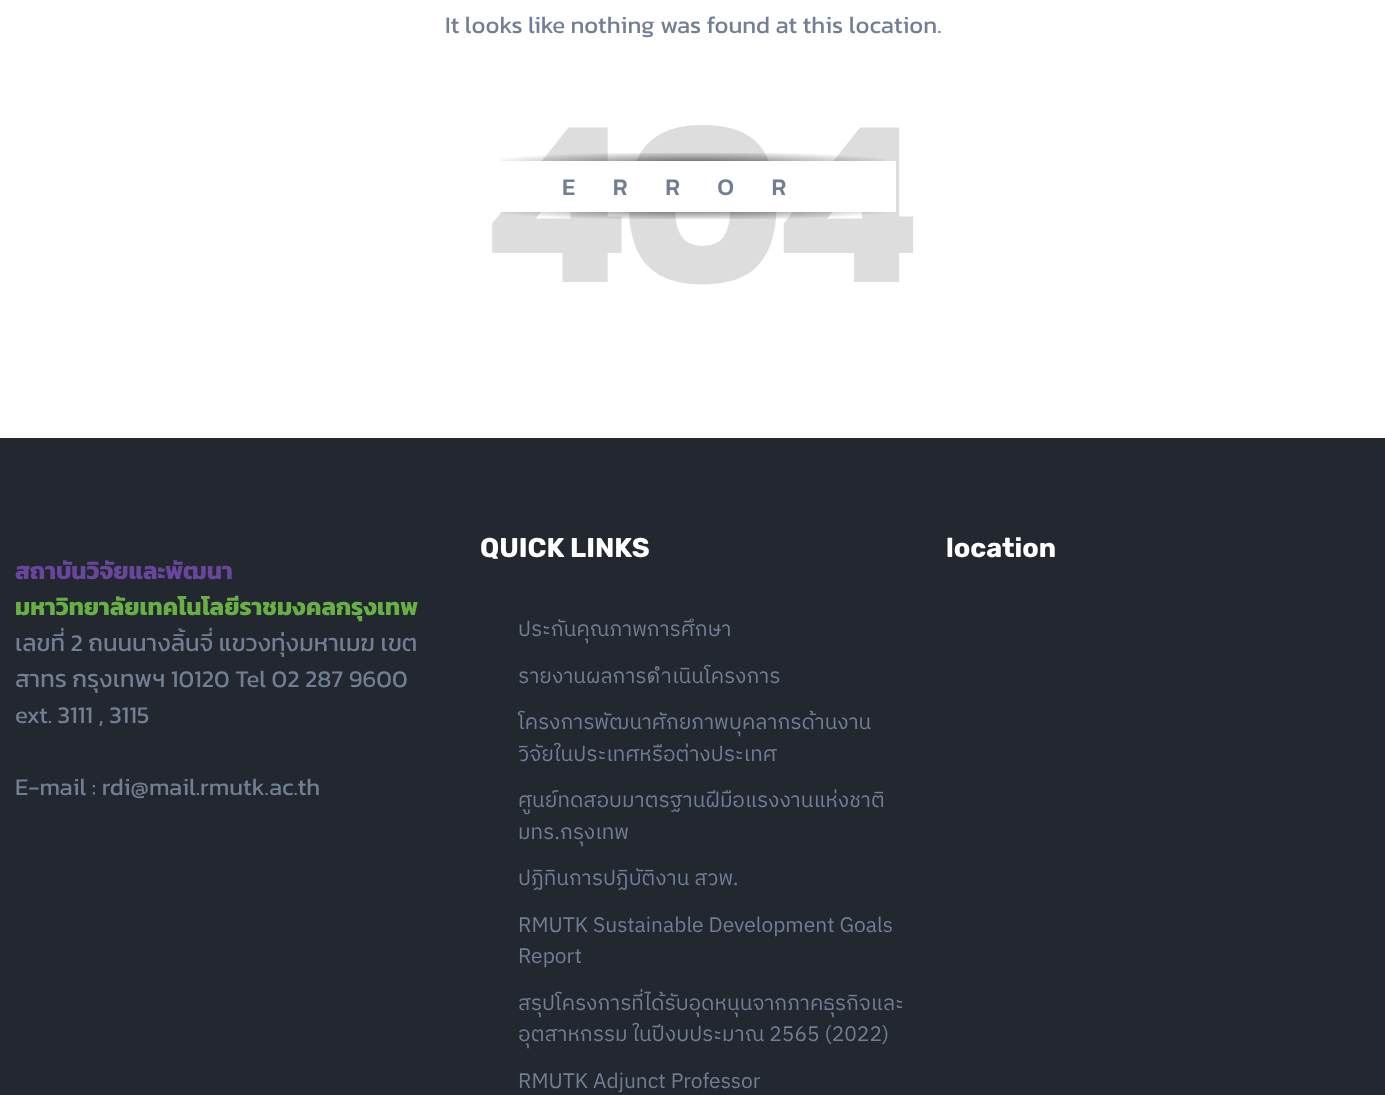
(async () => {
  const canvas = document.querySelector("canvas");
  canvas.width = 1385;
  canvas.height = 1095;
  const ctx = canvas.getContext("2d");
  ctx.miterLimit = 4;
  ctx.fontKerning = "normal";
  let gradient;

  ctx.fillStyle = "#ffffff";
  ctx.fillRect(0, 0, 1385, 1095);
  ctx.fillStyle = "#232830";
  ctx.fillRect(0, 438, 1385, 657);
  ctx.font = "24px Kanit";
  ctx.fillStyle = "#717e94";
  ctx.fillText("It looks like nothing was found at this location.", 445, 33);
  ctx.font = "bold 240px Kanit";
  ctx.fillStyle = "#dddddd";
  ctx.fillText("404", 491, 282);
  ctx.fillStyle = "#ffffff";
  ctx.fillRect(501, 161, 395, 51);
  gradient = ctx.createRadialGradient(693, 2788, 0, 693, 2788, 272);
  gradient.addColorStop(0, "rgba(0, 0, 0, 0.6)");
  gradient.addColorStop(0.8, "rgba(0, 0, 0, 0)");
  ctx.fillStyle = gradient;
  ctx.beginPath();
  ctx.rect(501, 153, 384, 8);
  ctx.save();
  ctx.clip();
  ctx.scale(1, 16 / 272);
  ctx.fillRect(0, 0, 1385, 18615);
  ctx.restore();
  ctx.letterSpacing = "37.5px";
  ctx.font = "500 24px Kanit";
  ctx.fillStyle = "#717e94";
  ctx.fillText("ERROR", 562, 195);
  gradient = ctx.createRadialGradient(693, 3536, 0, 693, 3536, 272);
  gradient.addColorStop(0, "rgba(0, 0, 0, 0.6)");
  gradient.addColorStop(0.8, "rgba(0, 0, 0, 0)");
  ctx.fillStyle = gradient;
  ctx.beginPath();
  ctx.rect(501, 212, 384, 7);
  ctx.save();
  ctx.clip();
  ctx.scale(1, 16 / 272);
  ctx.fillRect(0, 0, 1385, 18615);
  ctx.restore();
  ctx.letterSpacing = "0px";
  ctx.font = "bold 27px Rubik";
  ctx.fillStyle = "#ffffff";
  ctx.fillText("QUICK LINKS", 480, 557);
  ctx.font = "21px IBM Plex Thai";
  ctx.fillStyle = "#717e94";
  for (const [text, x, y] of [
    ["ประกันคุณภาพการศึกษา", 518, 636],
    ["รายงานผลการดำเนินโครงการ", 518, 683],
    ["โครงการพัฒนาศักยภาพบุคลากรด้านงาน", 518, 729],
    ["วิจัยในประเทศหรือต่างประเทศ", 518, 761],
    ["ศูนย์ทดสอบมาตรฐานฝีมือแรงงานแห่งชาติ", 518, 807],
    ["มทร.กรุงเทพ", 518, 839],
    ["ปฏิทินการปฏิบัติงาน สวพ.", 518, 885],
    ["RMUTK Sustainable Development Goals", 518, 932],
    ["Report", 518, 963],
    ["สรุปโครงการที่ได้รับอุดหนุนจากภาคธุรกิจและ", 518, 1010],
    ["อุตสาหกรรม ในปีงบประมาณ 2565 (2022)", 518, 1041],
    ["RMUTK Adjunct Professor", 518, 1088],
  ]) {
    ctx.fillText(text, x, y);
  }
  ctx.font = "bold 27px Rubik";
  ctx.fillStyle = "#ffffff";
  ctx.fillText("location", 946, 557);
  ctx.font = "bold 24px Kanit";
  ctx.fillStyle = "#69469c";
  ctx.fillText("สถาบันวิจัยและพัฒนา", 15, 579);
  ctx.fillStyle = "#68b045";
  ctx.fillText("มหาวิทยาลัยเทคโนโลยีราชมงคลกรุงเทพ", 15, 615);
  ctx.font = "24px Kanit";
  ctx.fillStyle = "#717e94";
  for (const [text, x, y] of [
    ["เลขที่ 2 ถนนนางลิ้นจี่ แขวงทุ่งมหาเมฆ เขต", 15, 651],
    ["สาทร กรุงเทพฯ 10120 Tel 02 287 9600", 15, 687],
    ["ext. 3111 , 3115", 15, 723],
    ["E-mail : rdi@mail.rmutk.ac.th", 15, 795],
  ]) {
    ctx.fillText(text, x, y);
  }
})();
